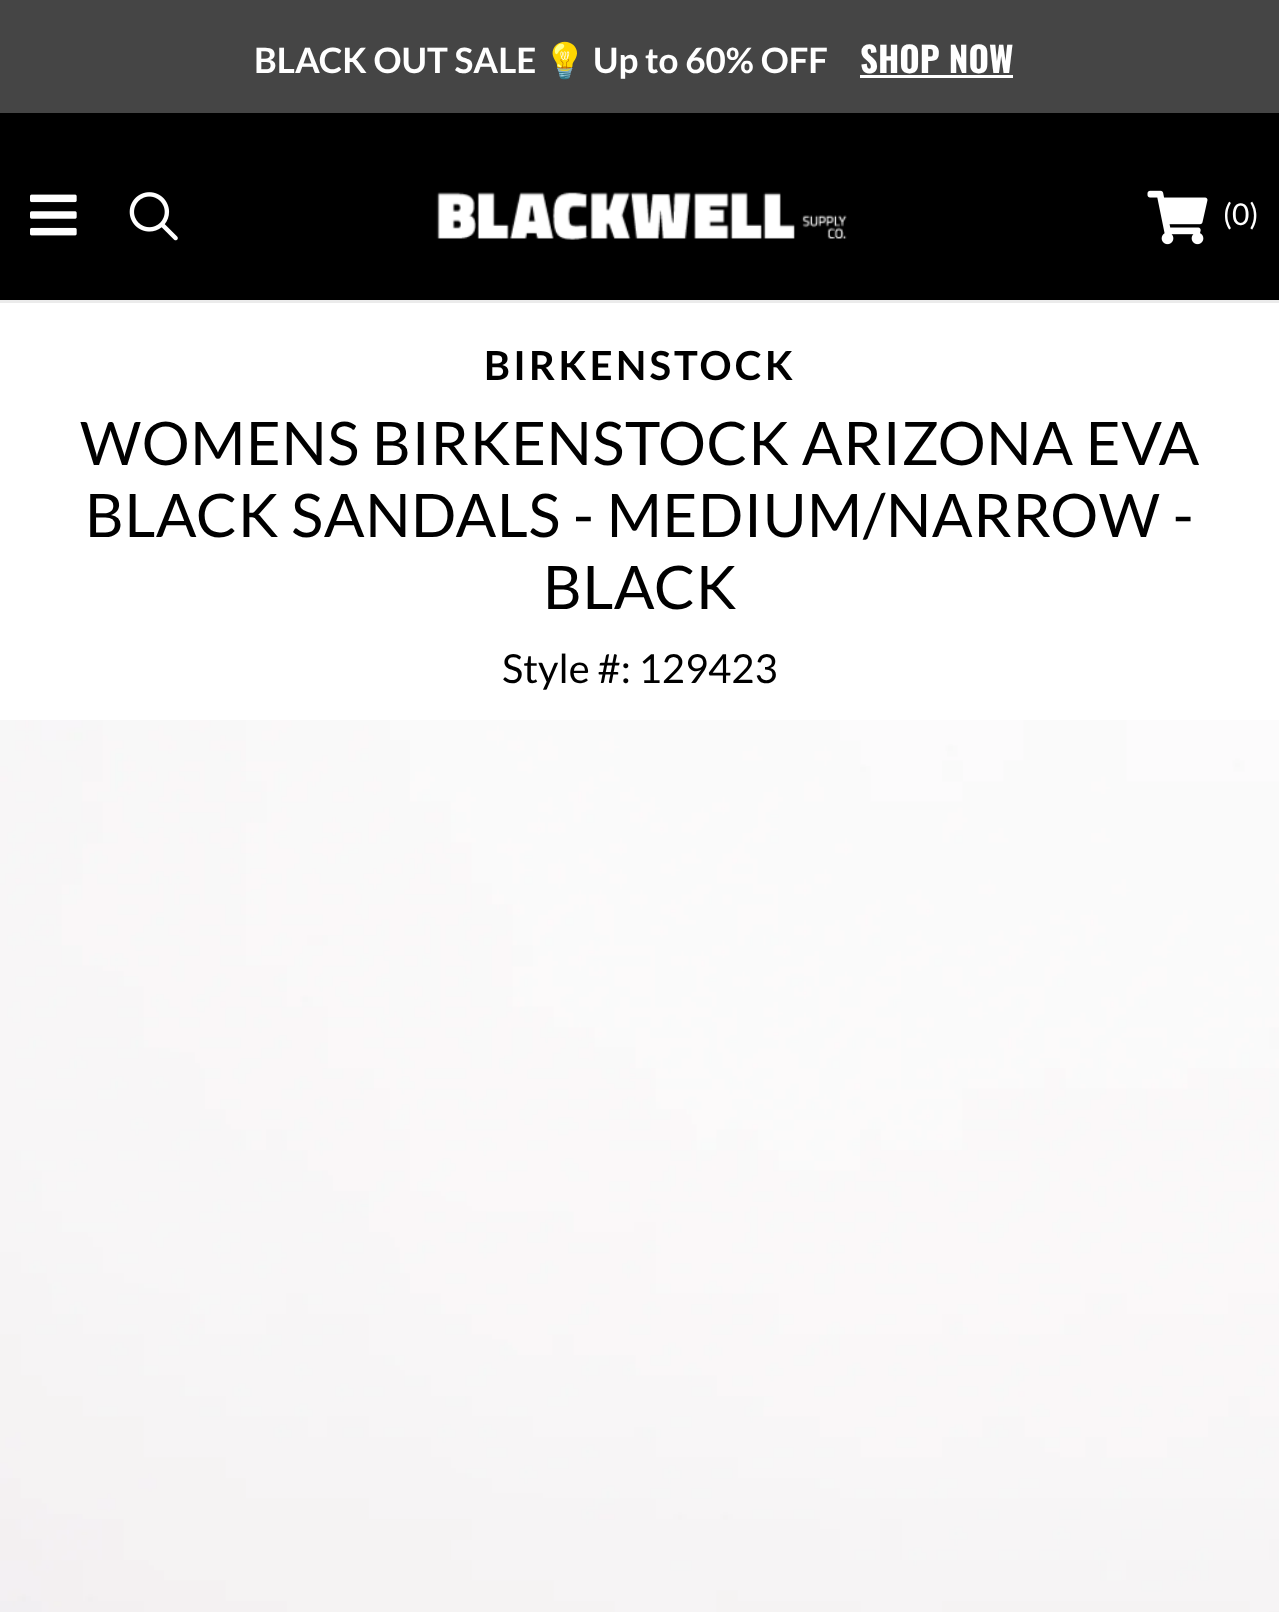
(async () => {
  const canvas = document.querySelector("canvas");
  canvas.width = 1279;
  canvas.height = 1612;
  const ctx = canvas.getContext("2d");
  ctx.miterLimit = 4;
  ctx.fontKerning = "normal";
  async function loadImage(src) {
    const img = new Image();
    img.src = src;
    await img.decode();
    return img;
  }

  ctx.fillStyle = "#ffffff";
  ctx.fillRect(0, 0, 1279, 1612);
  for (const [x, y, w, h, color] of [
    [0, 0, 1279, 113, "#454545"],
    [860, 75, 153, 3, "#ffffff"],
    [0, 113, 1279, 187, "#000000"],
    [0, 300, 1279, 3, "#ebebeb"],
  ]) {
    ctx.fillStyle = color;
    ctx.fillRect(x, y, w, h);
  }
  ctx.drawImage(await loadImage("img/1.png"), 30, 194, 47, 42);
  ctx.drawImage(await loadImage("img/2.png"), 129, 192, 49, 49);
  ctx.drawImage(await loadImage("img/3.png"), 436, 192, 411, 48);
  ctx.drawImage(await loadImage("img/4.png"), 1147, 190, 61, 55);
  ctx.drawImage(await loadImage("img/5.png"), 0, 720, 1279, 892);
  ctx.font = "bold 35px Lato";
  ctx.fillStyle = "#ffffff";
  ctx.fillText("BLACK OUT SALE", 254, 73);
  ctx.font = "35px Noto Color Emoji";
  ctx.fillText("💡", 543, 73);
  ctx.font = "bold 35px Lato";
  ctx.fillText("Up to 60% OFF", 593, 73);
  ctx.font = "bold 35px Oswald";
  ctx.fillText("SHOP NOW", 860, 73);
  ctx.font = "30px Lato";
  ctx.fillText("(0)", 1223, 225);
  ctx.letterSpacing = "3.25px";
  ctx.font = "bold 40px Lato";
  ctx.fillStyle = "#000000";
  ctx.fillText("BIRKENSTOCK", 484, 380);
  ctx.letterSpacing = "0.6px";
  ctx.font = "60px Lato";
  for (const [text, x, y] of [
    ["WOMENS BIRKENSTOCK ARIZONA EVA", 80, 465],
    ["BLACK SANDALS - MEDIUM/NARROW -", 85, 537],
    ["BLACK", 543, 609],
  ]) {
    ctx.fillText(text, x, y);
  }
  ctx.letterSpacing = "0px";
  ctx.font = "40px Lato";
  ctx.fillText("Style #: 129423", 502, 683);
})();
